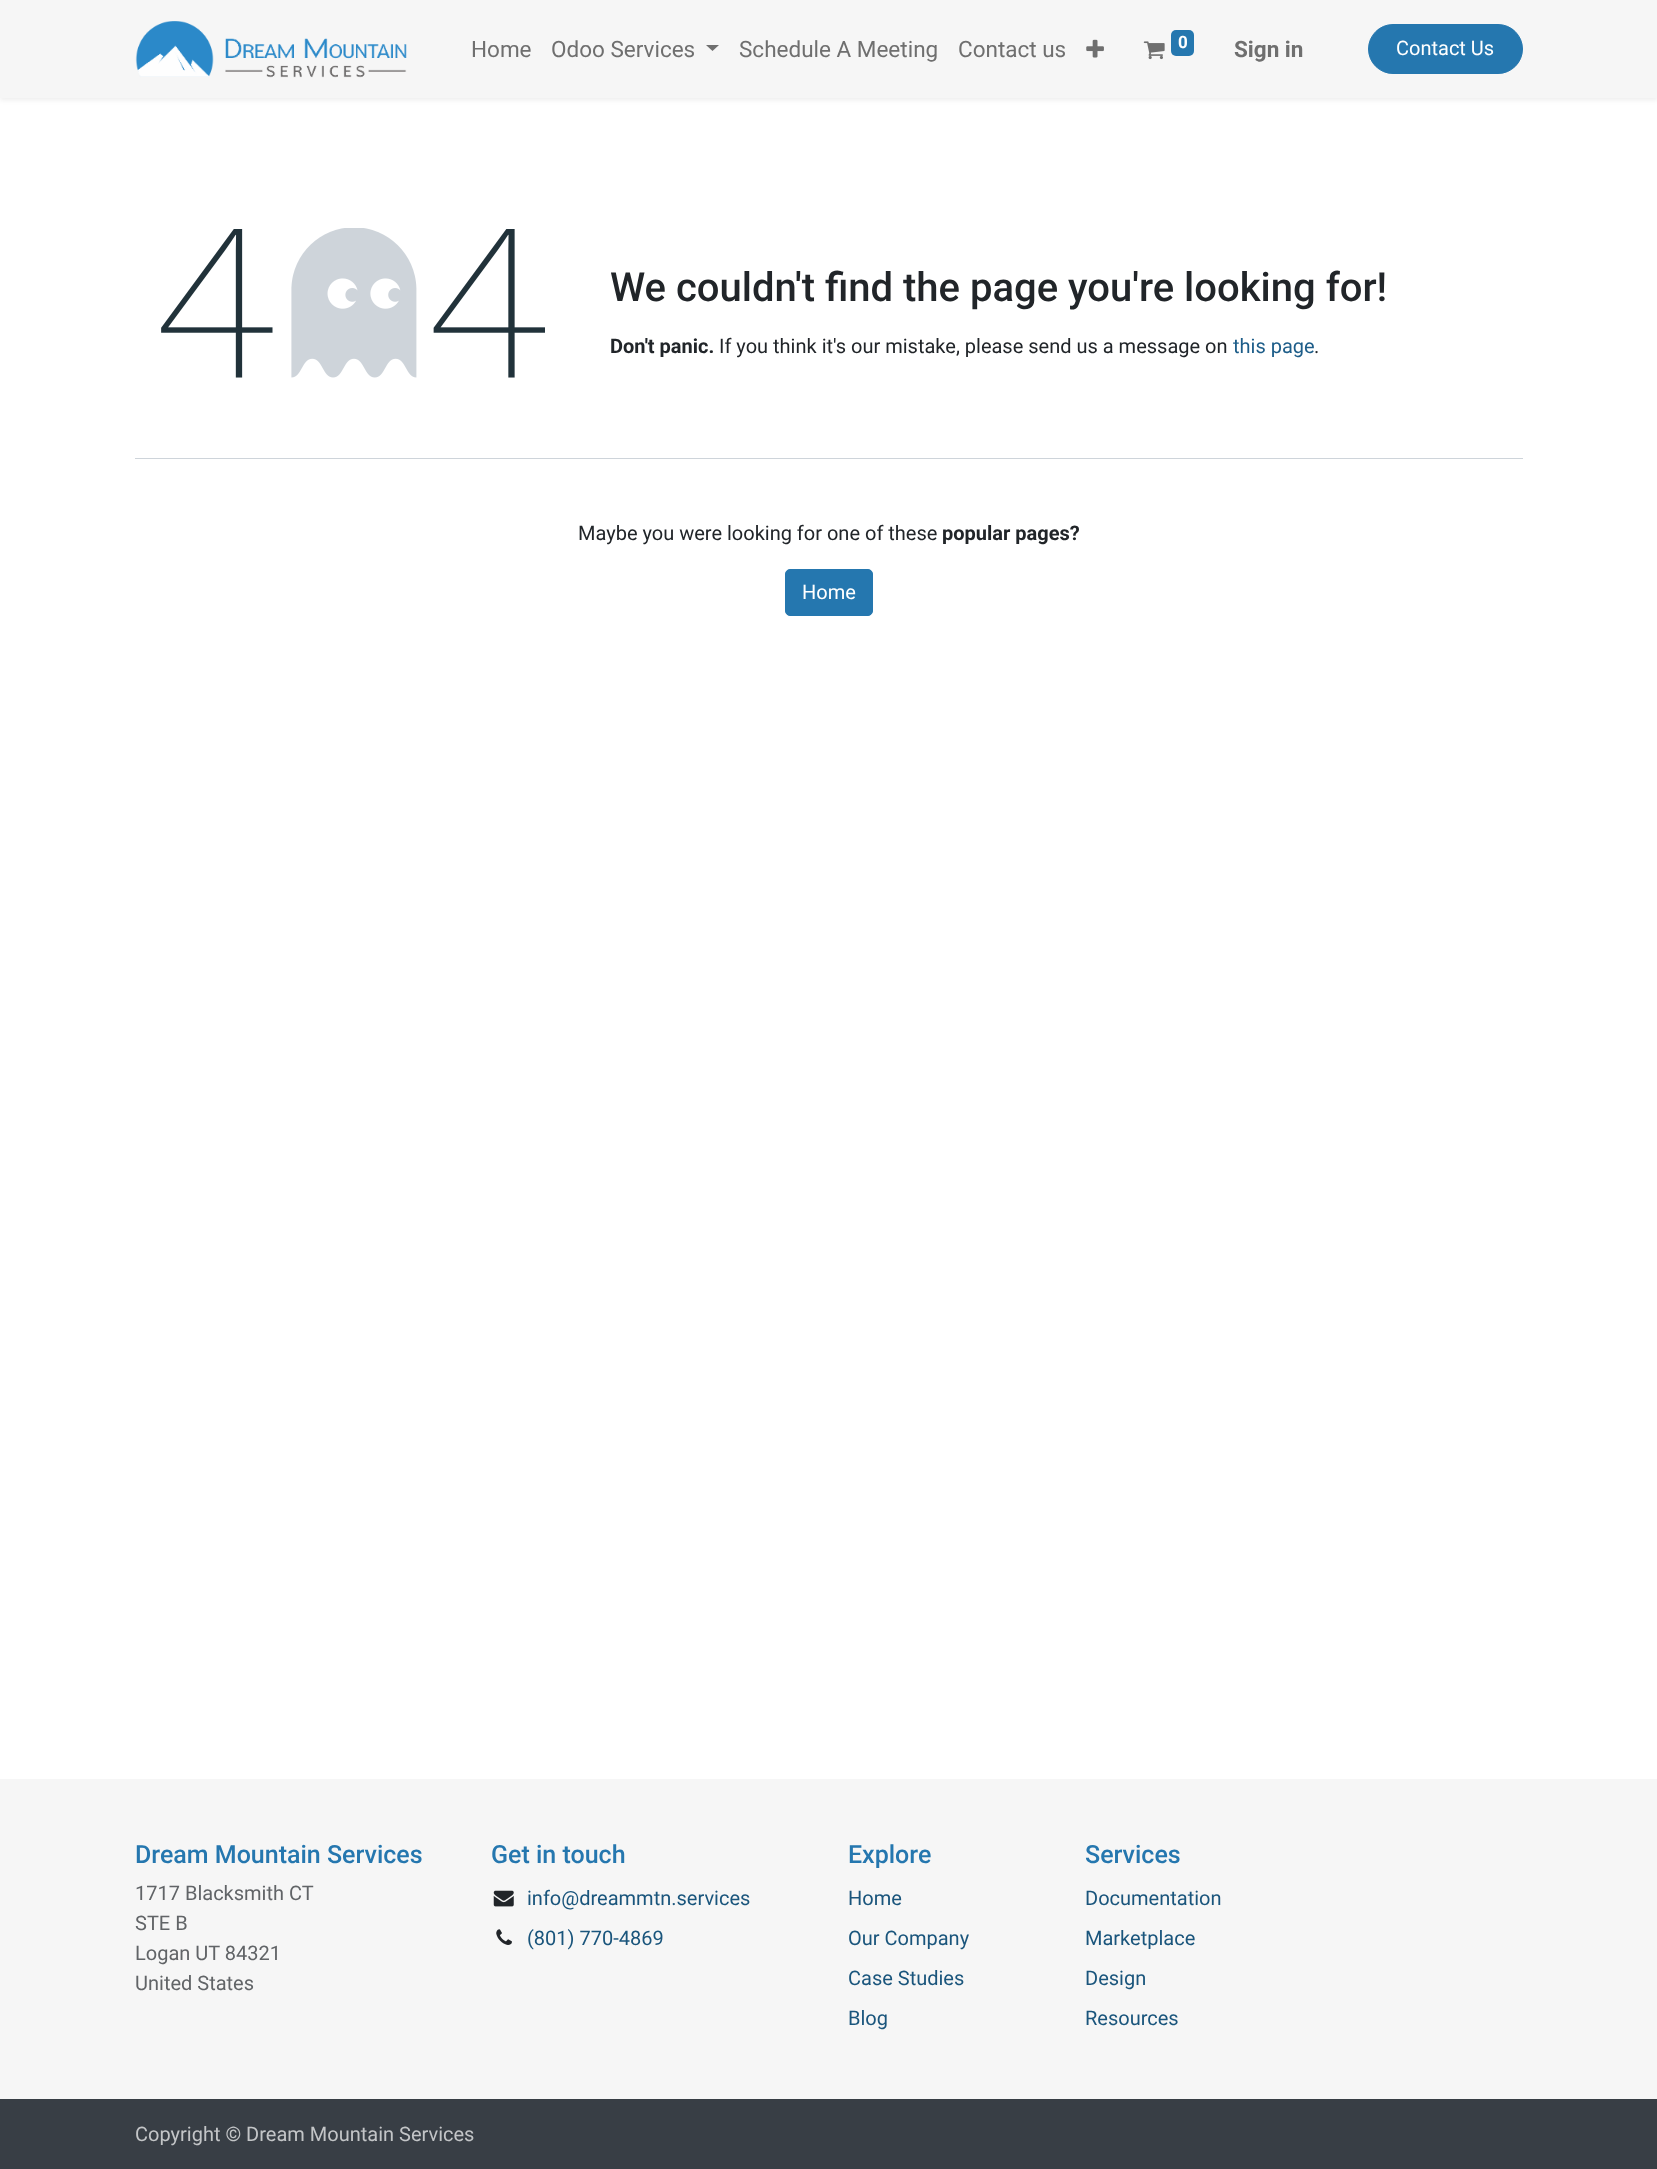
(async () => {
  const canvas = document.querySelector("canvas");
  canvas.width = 1657;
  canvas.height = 2169;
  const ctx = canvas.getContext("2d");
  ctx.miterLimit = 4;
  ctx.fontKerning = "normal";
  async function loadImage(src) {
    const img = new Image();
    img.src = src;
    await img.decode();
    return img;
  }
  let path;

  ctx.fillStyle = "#ffffff";
  ctx.fillRect(0, 0, 1657, 2169);
  ctx.fillStyle = "rgba(0, 0, 0, 0.07)";
  ctx.filter = "blur(2.5px)";
  ctx.beginPath();
  ctx.rect(0, 3, 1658, 97);
  ctx.fill();
  ctx.filter = "none";
  ctx.fillStyle = "#f6f6f6";
  ctx.fillRect(0, 0, 1657, 98);
  ctx.drawImage(await loadImage("img/1.png"), 135, 21, 272, 57);
  ctx.fillStyle = "#6f6f6f";
  path = new Path2D("M706 45H719L712.5 51Z");
  ctx.fill(path);
  ctx.drawImage(await loadImage("img/2.png"), 1086, 39, 18, 19);
  ctx.drawImage(await loadImage("img/3.png"), 1143, 41, 22, 19);
  ctx.fillStyle = "#2577af";
  ctx.beginPath();
  ctx.roundRect(1171, 30, 23, 26, 5);
  ctx.fill();
  ctx.beginPath();
  ctx.roundRect(1368.5, 24.5, 154, 49, 24.5);
  ctx.fill();
  ctx.strokeStyle = "#2577af";
  ctx.stroke();
  ctx.drawImage(await loadImage("img/4.png"), 161, 228, 384, 150);
  ctx.fillStyle = "#ced4da";
  ctx.fillRect(135, 458, 1388, 1);
  ctx.fillStyle = "#2577af";
  ctx.beginPath();
  ctx.roundRect(785.5, 569.5, 87, 46, 4.5);
  ctx.fill();
  ctx.stroke();
  ctx.fillStyle = "#f6f6f6";
  ctx.fillRect(0, 1779, 1657, 320);
  ctx.drawImage(await loadImage("img/5.png"), 493, 1890, 21, 17);
  ctx.drawImage(await loadImage("img/6.png"), 496, 1929, 16, 16);
  ctx.fillStyle = "#383e45";
  ctx.fillRect(0, 2099, 1657, 70);
  ctx.font = "22.5px Roboto";
  ctx.fillStyle = "#6f6f6f";
  for (const [text, x, y] of [
    ["Home", 471, 57],
    ["Odoo Services", 551, 57],
    ["Schedule A Meeting", 739, 57],
    ["Contact us", 958, 57],
  ]) {
    ctx.fillText(text, x, y);
  }
  ctx.font = "bold 17px Roboto";
  ctx.fillStyle = "#ffffff";
  ctx.fillText("0", 1178, 48);
  ctx.font = "bold 22.5px Roboto";
  ctx.fillStyle = "#6f6f6f";
  ctx.fillText("Sign in", 1234, 57);
  ctx.font = "20px Roboto";
  ctx.fillStyle = "#ffffff";
  ctx.fillText("Contact Us", 1396, 55);
  ctx.font = "500 40px Roboto";
  ctx.fillStyle = "#212529";
  ctx.fillText("We couldn't find the page you're looking for!", 610, 301);
  ctx.font = "bold 20px Roboto";
  ctx.fillText("Don't panic.", 610, 353);
  ctx.font = "20px Roboto";
  ctx.fillText("If you think it's our mistake, please send us a message on", 719, 353);
  ctx.fillStyle = "#1d5d89";
  ctx.fillText("this page", 1233, 353);
  ctx.fillStyle = "#212529";
  ctx.fillText(".", 1314, 353);
  ctx.fillText("Maybe you were looking for one of these", 578, 540);
  ctx.font = "bold 20px Roboto";
  ctx.fillText("popular pages?", 942, 540);
  ctx.font = "20px Roboto";
  ctx.fillStyle = "#ffffff";
  ctx.fillText("Home", 802, 599);
  ctx.font = "500 25px Roboto";
  ctx.fillStyle = "#2577af";
  ctx.fillText("Dream Mountain Services", 135, 1863);
  ctx.font = "20px Roboto";
  ctx.fillStyle = "#616467";
  for (const [text, x, y] of [
    ["1717 Blacksmith CT", 135, 1900],
    ["STE B", 135, 1930],
    ["Logan UT 84321", 135, 1960],
    ["United States", 135, 1990],
  ]) {
    ctx.fillText(text, x, y);
  }
  ctx.font = "500 25px Roboto";
  ctx.fillStyle = "#2577af";
  ctx.fillText("Get in touch", 491, 1863);
  ctx.font = "20px Roboto";
  ctx.fillStyle = "#1a557c";
  ctx.fillText("info@dreammtn.services", 527, 1905);
  ctx.fillText("(801) 770-4869", 527, 1945);
  ctx.font = "500 25px Roboto";
  ctx.fillStyle = "#2577af";
  ctx.fillText("Explore", 848, 1863);
  ctx.font = "20px Roboto";
  ctx.fillStyle = "#1a557c";
  for (const [text, x, y] of [
    ["Home", 848, 1905],
    ["Our Company", 848, 1945],
    ["Case Studies", 848, 1985],
    ["Blog", 848, 2025],
  ]) {
    ctx.fillText(text, x, y);
  }
  ctx.font = "500 25px Roboto";
  ctx.fillStyle = "#2577af";
  ctx.fillText("Services", 1085, 1863);
  ctx.font = "20px Roboto";
  ctx.fillStyle = "#1a557c";
  for (const [text, x, y] of [
    ["Documentation", 1085, 1905],
    ["Marketplace", 1085, 1945],
    ["Design", 1085, 1985],
    ["Resources", 1085, 2025],
  ]) {
    ctx.fillText(text, x, y);
  }
  ctx.fillStyle = "#c3c5c7";
  ctx.fillText("Copyright © Dream Mountain Services", 135, 2141);
})();
